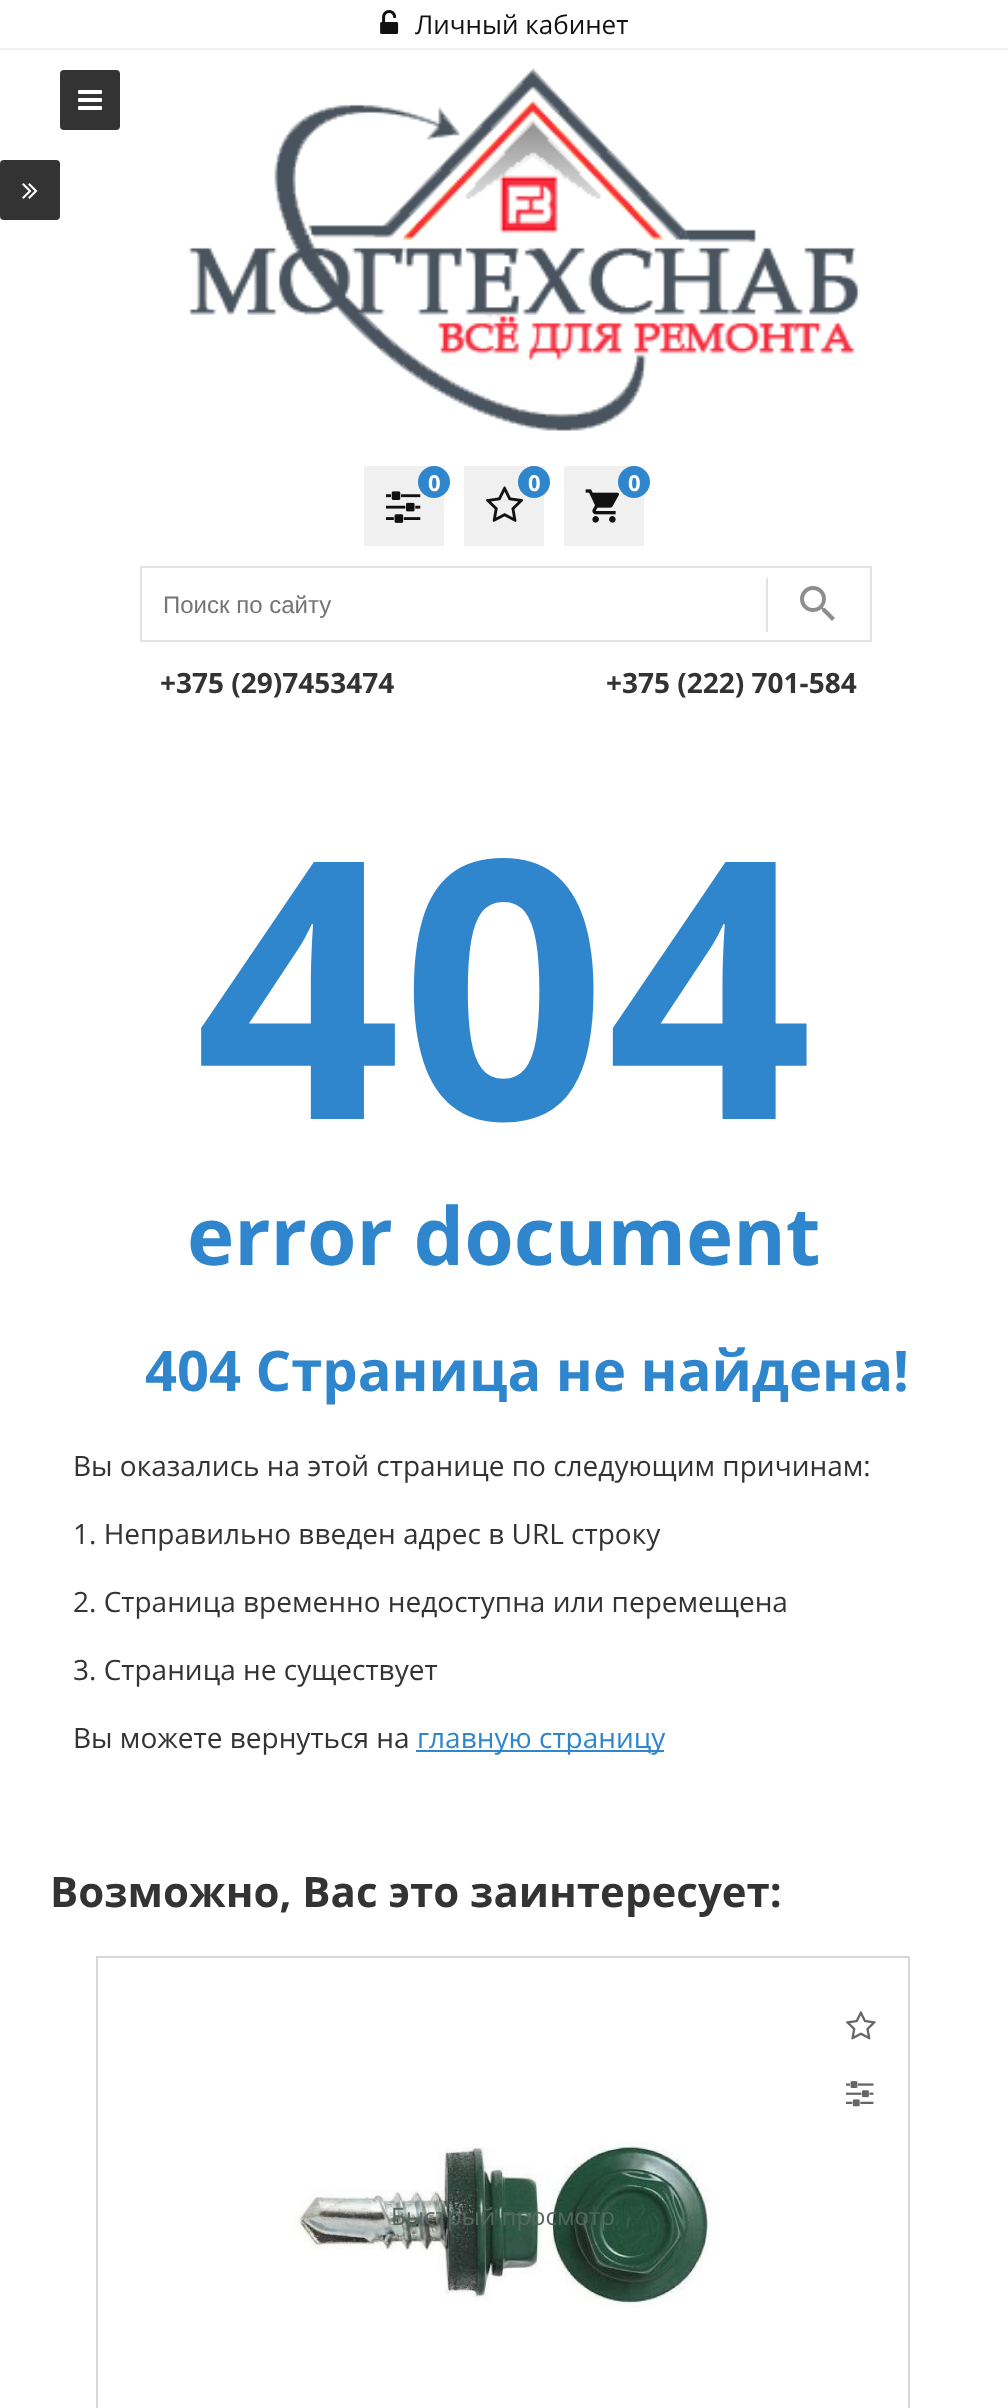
(async () => {
  const canvas = document.querySelector("canvas");
  canvas.width = 1008;
  canvas.height = 2408;
  const ctx = canvas.getContext("2d");
  ctx.miterLimit = 4;
  ctx.fontKerning = "normal";
  async function loadImage(src) {
    const img = new Image();
    img.src = src;
    await img.decode();
    return img;
  }

  ctx.fillStyle = "#ffffff";
  ctx.fillRect(0, 0, 1008, 2408);
  ctx.fillStyle = "#f0f0f0";
  ctx.fillRect(0, 48, 1008, 2);
  ctx.drawImage(await loadImage("img/1.png"), 380, 10, 19, 24);
  ctx.fillStyle = "#333333";
  ctx.beginPath();
  ctx.roundRect(60, 70, 60, 60, 4);
  ctx.fill();
  ctx.drawImage(await loadImage("img/2.png"), 78, 90, 24, 20);
  ctx.drawImage(await loadImage("img/3.png"), 188, 68, 672, 363);
  ctx.fillStyle = "#f0f0f0";
  ctx.fillRect(364, 466, 80, 80);
  ctx.drawImage(await loadImage("img/4.png"), 386, 491, 35, 32);
  ctx.fillStyle = "#2f86cc";
  ctx.beginPath();
  ctx.arc(434, 482, 16, 0, Math.PI * 2);
  ctx.fill();
  ctx.fillStyle = "#f0f0f0";
  ctx.fillRect(464, 466, 80, 80);
  ctx.drawImage(await loadImage("img/5.png"), 486, 486, 38, 36);
  ctx.fillStyle = "#2f86cc";
  ctx.beginPath();
  ctx.arc(534, 482, 16, 0, Math.PI * 2);
  ctx.fill();
  ctx.fillStyle = "#f0f0f0";
  ctx.fillRect(564, 466, 80, 80);
  ctx.drawImage(await loadImage("img/6.png"), 585, 489, 34, 34);
  ctx.fillStyle = "#2f86cc";
  ctx.beginPath();
  ctx.arc(634, 482, 16, 0, Math.PI * 2);
  ctx.fill();
  ctx.strokeStyle = "#e3e3e3";
  ctx.lineWidth = 2;
  ctx.strokeRect(141, 567, 730, 74);
  ctx.fillStyle = "#e3e3e3";
  ctx.fillRect(766, 578, 2, 54);
  ctx.drawImage(await loadImage("img/7.png"), 800, 586, 35, 35);
  ctx.fillStyle = "#333333";
  ctx.beginPath();
  ctx.roundRect(0, 160, 60, 60, 4);
  ctx.fill();
  ctx.drawImage(await loadImage("img/8.png"), 22, 183, 16, 16);
  ctx.fillStyle = "#2f86cc";
  ctx.fillRect(416, 1750, 248, 2);
  ctx.strokeStyle = "#d4d8db";
  ctx.strokeRect(97, 1957, 812, 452);
  ctx.drawImage(await loadImage("img/9.png"), 846, 2011, 30, 29);
  ctx.drawImage(await loadImage("img/10.png"), 846, 2081, 28, 26);
  ctx.drawImage(await loadImage("img/11.png"), 294, 2141, 417, 167);
  ctx.font = "26px Open Sans";
  ctx.fillStyle = "#111111";
  ctx.fillText("Личный кабинет", 415, 34);
  ctx.font = "bold 22px Open Sans";
  ctx.fillStyle = "#ffffff";
  for (const [text, x, y] of [
    ["0", 428, 491],
    ["0", 528, 491],
    ["0", 628, 491],
  ]) {
    ctx.fillText(text, x, y);
  }
  ctx.font = "24px Liberation Sans";
  ctx.fillStyle = "#757575";
  ctx.fillText("Поиск по сайту", 163, 613);
  ctx.font = "bold 28px Open Sans";
  ctx.fillStyle = "#333333";
  ctx.fillText("+375 (29)7453474", 160, 693);
  ctx.fillText("+375 (222) 701-584", 606, 693);
  ctx.font = "bold 360px Open Sans";
  ctx.fillStyle = "#2f86cc";
  ctx.fillText("404", 195, 1119);
  ctx.font = "bold 80px Open Sans";
  ctx.fillText("error document", 187, 1265);
  ctx.font = "bold 56px Open Sans";
  ctx.fillText("404 Страница не найдена!", 145, 1391);
  ctx.font = "28px Open Sans";
  ctx.fillStyle = "#333333";
  for (const [text, x, y] of [
    ["Вы оказались на этой странице по следующим причинам:", 73, 1476],
    ["1. Неправильно введен адрес в URL строку", 73, 1544],
    ["2. Страница временно недоступна или перемещена", 73, 1612],
    ["3. Страница не существует", 73, 1680],
    ["Вы можете вернуться на", 73, 1748],
  ]) {
    ctx.fillText(text, x, y);
  }
  ctx.fillStyle = "#2f86cc";
  ctx.fillText("главную страницу", 417, 1748);
  ctx.font = "bold 42px Open Sans";
  ctx.fillStyle = "#333333";
  ctx.fillText("Возможно, Вас это заинтересует:", 50, 1907);
  ctx.font = "24px Open Sans";
  ctx.fillStyle = "#54695f";
  ctx.fillText("Быстрый просмотр", 391, 2225);
})();
